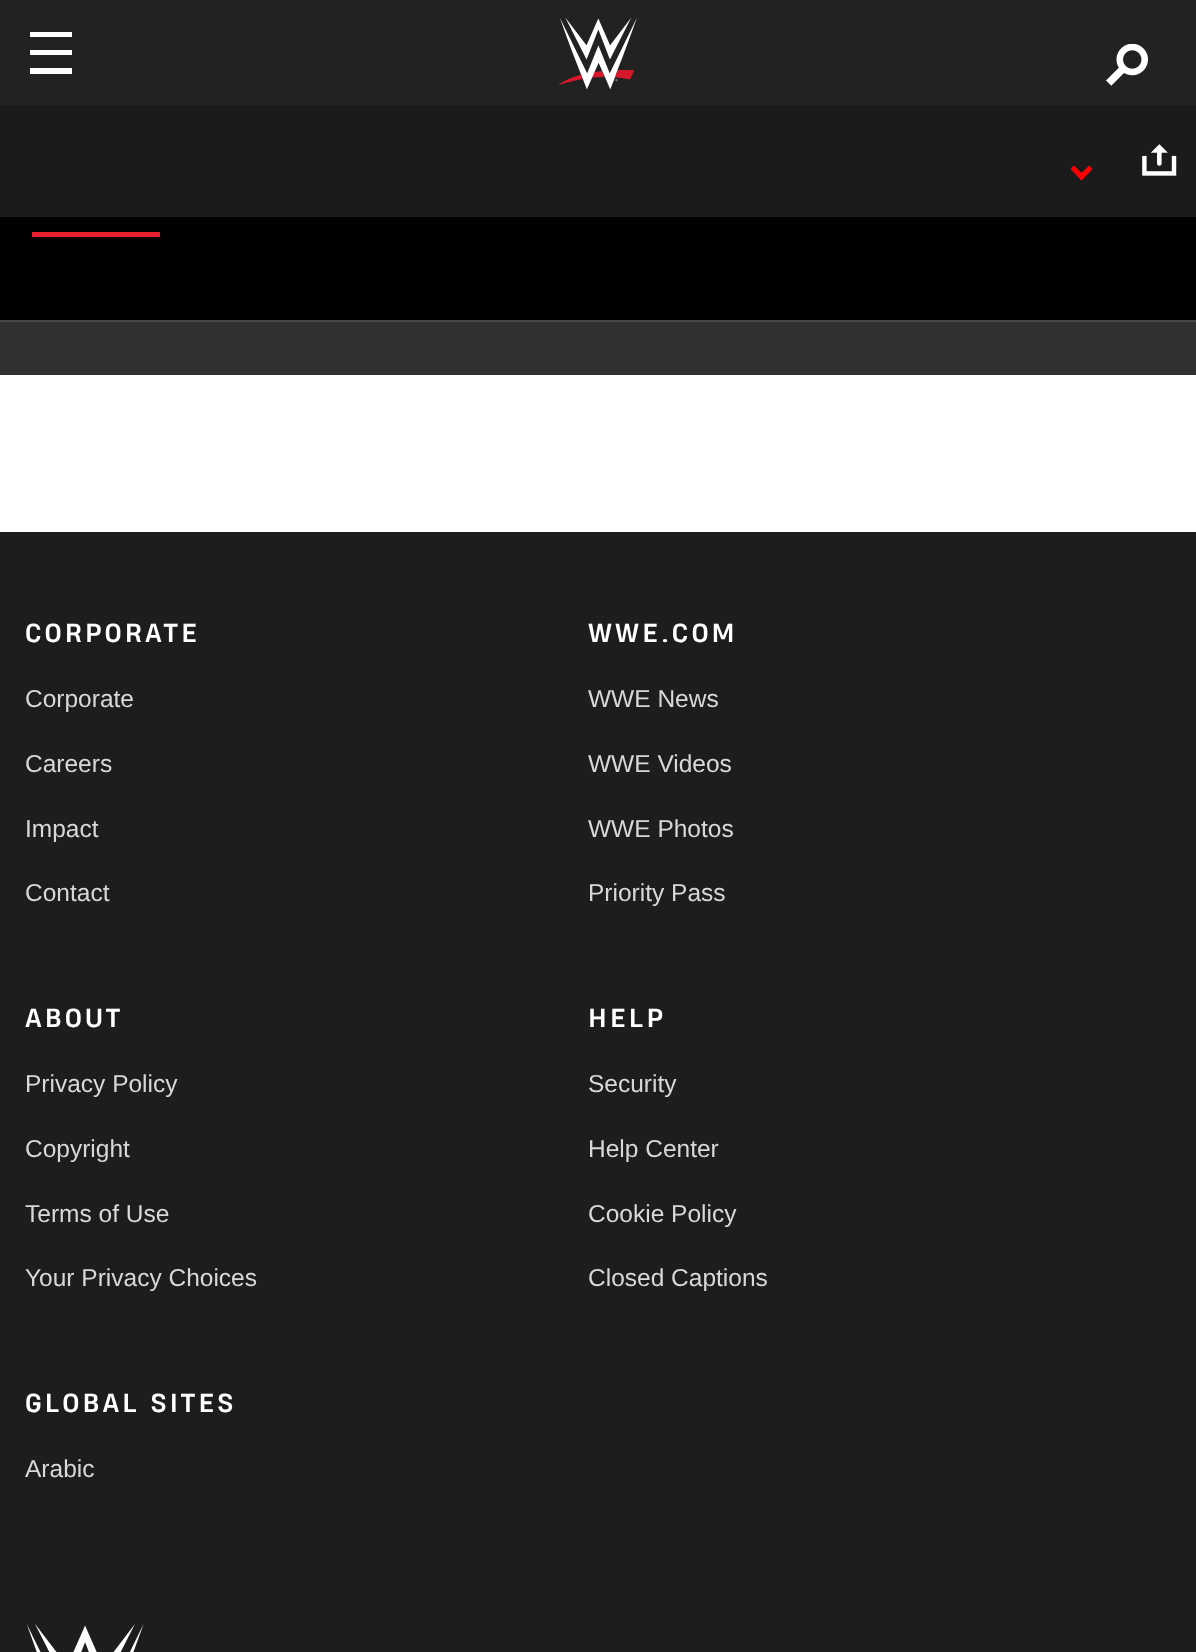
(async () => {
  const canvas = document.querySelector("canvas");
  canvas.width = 1196;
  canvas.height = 1652;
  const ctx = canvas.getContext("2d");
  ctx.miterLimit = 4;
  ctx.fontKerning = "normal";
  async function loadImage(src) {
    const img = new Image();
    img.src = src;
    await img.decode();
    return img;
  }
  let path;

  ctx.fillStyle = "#ffffff";
  ctx.fillRect(0, 0, 1196, 1652);
  ctx.fillStyle = "#222222";
  ctx.fillRect(0, 0, 1196, 105);
  ctx.fillStyle = "#ffffff";
  path = new Path2D("M32 37H30V32H72V37ZM32 55H30V50H72V55ZM32 74H30V68H72V74Z");
  ctx.fill(path, "evenodd");
  ctx.drawImage(await loadImage("img/1.png"), 558, 17, 79, 73);
  ctx.drawImage(await loadImage("img/2.png"), 1106, 44, 42, 42);
  ctx.fillStyle = "#303030";
  ctx.fillRect(0, 322, 1196, 53);
  ctx.fillStyle = "#1b1b1b";
  ctx.fillRect(0, 105, 1196, 112);
  ctx.fillStyle = "#ff0000";
  path = new Path2D("M1089 165.5L1092.5 169L1081.5 180.5L1078 176.5Z");
  ctx.fill(path);
  path = new Path2D("M1074 165.5L1085 176.5L1081.5 180.5L1070.5 169Z");
  ctx.fill(path);
  ctx.drawImage(await loadImage("img/3.png"), 1142, 144, 35, 32);
  for (const [x, y, w, h, color] of [
    [0, 217, 1196, 103, "#000000"],
    [0, 320, 1196, 2, "#474747"],
    [32, 232, 128, 5, "#e7202f"],
    [0, 532, 1196, 1120, "#1d1d1d"],
  ]) {
    ctx.fillStyle = color;
    ctx.fillRect(x, y, w, h);
  }
  ctx.drawImage(await loadImage("img/4.png"), 26, 1624, 118, 28);
  ctx.letterSpacing = "3px";
  ctx.font = "bold 24.5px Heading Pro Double";
  ctx.fillStyle = "#ffffff";
  ctx.fillText("CORPORATE", 25, 642);
  ctx.letterSpacing = "0px";
  ctx.font = "24.5px Liberation Sans";
  ctx.fillStyle = "#d8d8d8";
  for (const [text, x, y] of [
    ["Corporate", 25, 707],
    ["Careers", 25, 772],
    ["Impact", 25, 837],
    ["Contact", 25, 901],
  ]) {
    ctx.fillText(text, x, y);
  }
  ctx.letterSpacing = "3px";
  ctx.font = "bold 24.5px Heading Pro Double";
  ctx.fillStyle = "#ffffff";
  ctx.fillText("WWE.COM", 588, 642);
  ctx.letterSpacing = "0px";
  ctx.font = "24.5px Liberation Sans";
  ctx.fillStyle = "#d8d8d8";
  for (const [text, x, y] of [
    ["WWE News", 588, 707],
    ["WWE Videos", 588, 772],
    ["WWE Photos", 588, 837],
    ["Priority Pass", 588, 901],
  ]) {
    ctx.fillText(text, x, y);
  }
  ctx.letterSpacing = "3px";
  ctx.font = "bold 24.5px Heading Pro Double";
  ctx.fillStyle = "#ffffff";
  ctx.fillText("ABOUT", 25, 1027);
  ctx.letterSpacing = "0px";
  ctx.font = "24.5px Liberation Sans";
  ctx.fillStyle = "#d8d8d8";
  for (const [text, x, y] of [
    ["Privacy Policy", 25, 1092],
    ["Copyright", 25, 1157],
    ["Terms of Use", 25, 1222],
    ["Your Privacy Choices", 25, 1286],
  ]) {
    ctx.fillText(text, x, y);
  }
  ctx.letterSpacing = "3px";
  ctx.font = "bold 24.5px Heading Pro Double";
  ctx.fillStyle = "#ffffff";
  ctx.fillText("HELP", 588, 1027);
  ctx.letterSpacing = "0px";
  ctx.font = "24.5px Liberation Sans";
  ctx.fillStyle = "#d8d8d8";
  for (const [text, x, y] of [
    ["Security", 588, 1092],
    ["Help Center", 588, 1157],
    ["Cookie Policy", 588, 1222],
    ["Closed Captions", 588, 1286],
  ]) {
    ctx.fillText(text, x, y);
  }
  ctx.letterSpacing = "3px";
  ctx.font = "bold 24.5px Heading Pro Double";
  ctx.fillStyle = "#ffffff";
  ctx.fillText("GLOBAL SITES", 25, 1412);
  ctx.letterSpacing = "0px";
  ctx.font = "24.5px Liberation Sans";
  ctx.fillStyle = "#d8d8d8";
  ctx.fillText("Arabic", 25, 1477);
})();
